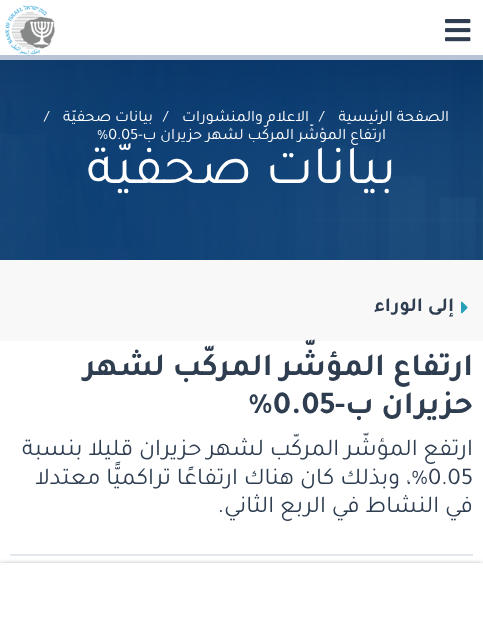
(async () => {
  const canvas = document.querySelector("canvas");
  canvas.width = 483;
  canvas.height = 617;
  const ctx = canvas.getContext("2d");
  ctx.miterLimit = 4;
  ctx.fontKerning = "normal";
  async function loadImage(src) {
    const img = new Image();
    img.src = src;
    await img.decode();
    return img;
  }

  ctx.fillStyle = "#f8f8f8";
  ctx.fillRect(0, 0, 483, 617);
  ctx.fillStyle = "#ffffff";
  ctx.fillRect(0, 0, 483, 55);
  ctx.fillStyle = "#b8c4d5";
  ctx.fillRect(0, 55, 483, 5);
  ctx.drawImage(await loadImage("img/1.png"), 445, 19, 26, 23);
  ctx.drawImage(await loadImage("img/2.png"), 5, 5, 50, 52);
  ctx.drawImage(await loadImage("img/3.png"), 482, 60, 1, 200);
  ctx.drawImage(await loadImage("img/4.png"), 0, 60, 483, 200);
  ctx.drawImage(await loadImage("img/5.png"), 461, 301, 7, 13);
  ctx.fillStyle = "#ffffff";
  ctx.fillRect(0, 341, 483, 222);
  ctx.fillStyle = "#e3e7ee";
  ctx.fillRect(10, 554, 463, 2);
  ctx.fillStyle = "rgba(0, 0, 0, 0.8)";
  ctx.filter = "blur(3px)";
  ctx.beginPath();
  ctx.rect(0, 566, 483, 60);
  ctx.fill();
  ctx.filter = "none";
  ctx.fillStyle = "#ffffff";
  ctx.fillRect(0, 563, 483, 54);
  ctx.direction = "rtl";
  ctx.font = "16px Tajawal";
  ctx.fillText("الصفحة الرئيسية", 449, 121);
  ctx.direction = "ltr";
  ctx.fillText("/", 319, 121);
  ctx.direction = "rtl";
  ctx.fillText("الاعلام والمنشورات", 309, 121);
  ctx.direction = "ltr";
  ctx.fillText("/", 163, 121);
  ctx.direction = "rtl";
  ctx.fillText("بيانات صحفيّة", 153, 121);
  ctx.direction = "ltr";
  ctx.fillText("/", 44, 121);
  ctx.direction = "rtl";
  ctx.fillText("ارتفاع المؤشّر المركّب لشهر حزيران ب-", 386, 139);
  ctx.direction = "ltr";
  ctx.fillText("%0.05", 97, 139);
  ctx.direction = "rtl";
  ctx.font = "55px Tajawal";
  ctx.fillText("بيانات صحفيّة", 396, 183);
  ctx.font = "bold 20px Tajawal";
  ctx.fillStyle = "#2e3d50";
  ctx.fillText("إلى الوراء", 454, 311);
  ctx.font = "bold 32px Tajawal";
  ctx.fillText("ارتفاع المؤشّر المركّب لشهر", 473, 375);
  ctx.fillText("حزيران ب-", 473, 413);
  ctx.direction = "ltr";
  ctx.fillText("%0.05", 248, 413);
  ctx.direction = "rtl";
  ctx.font = "24px Tajawal";
  ctx.fillText("ارتفع المؤشّر المركّب لشهر حزيران قليلا بنسبة", 473, 455);
  ctx.direction = "ltr";
  ctx.fillText("0.05", 428, 484);
  ctx.direction = "rtl";
  ctx.fillText("%، وبذلك كان هناك ارتفاعًا تراكميًّا معتدلا", 428, 484);
  ctx.fillText("في النشاط في الربع الثاني.", 473, 512);
})();
